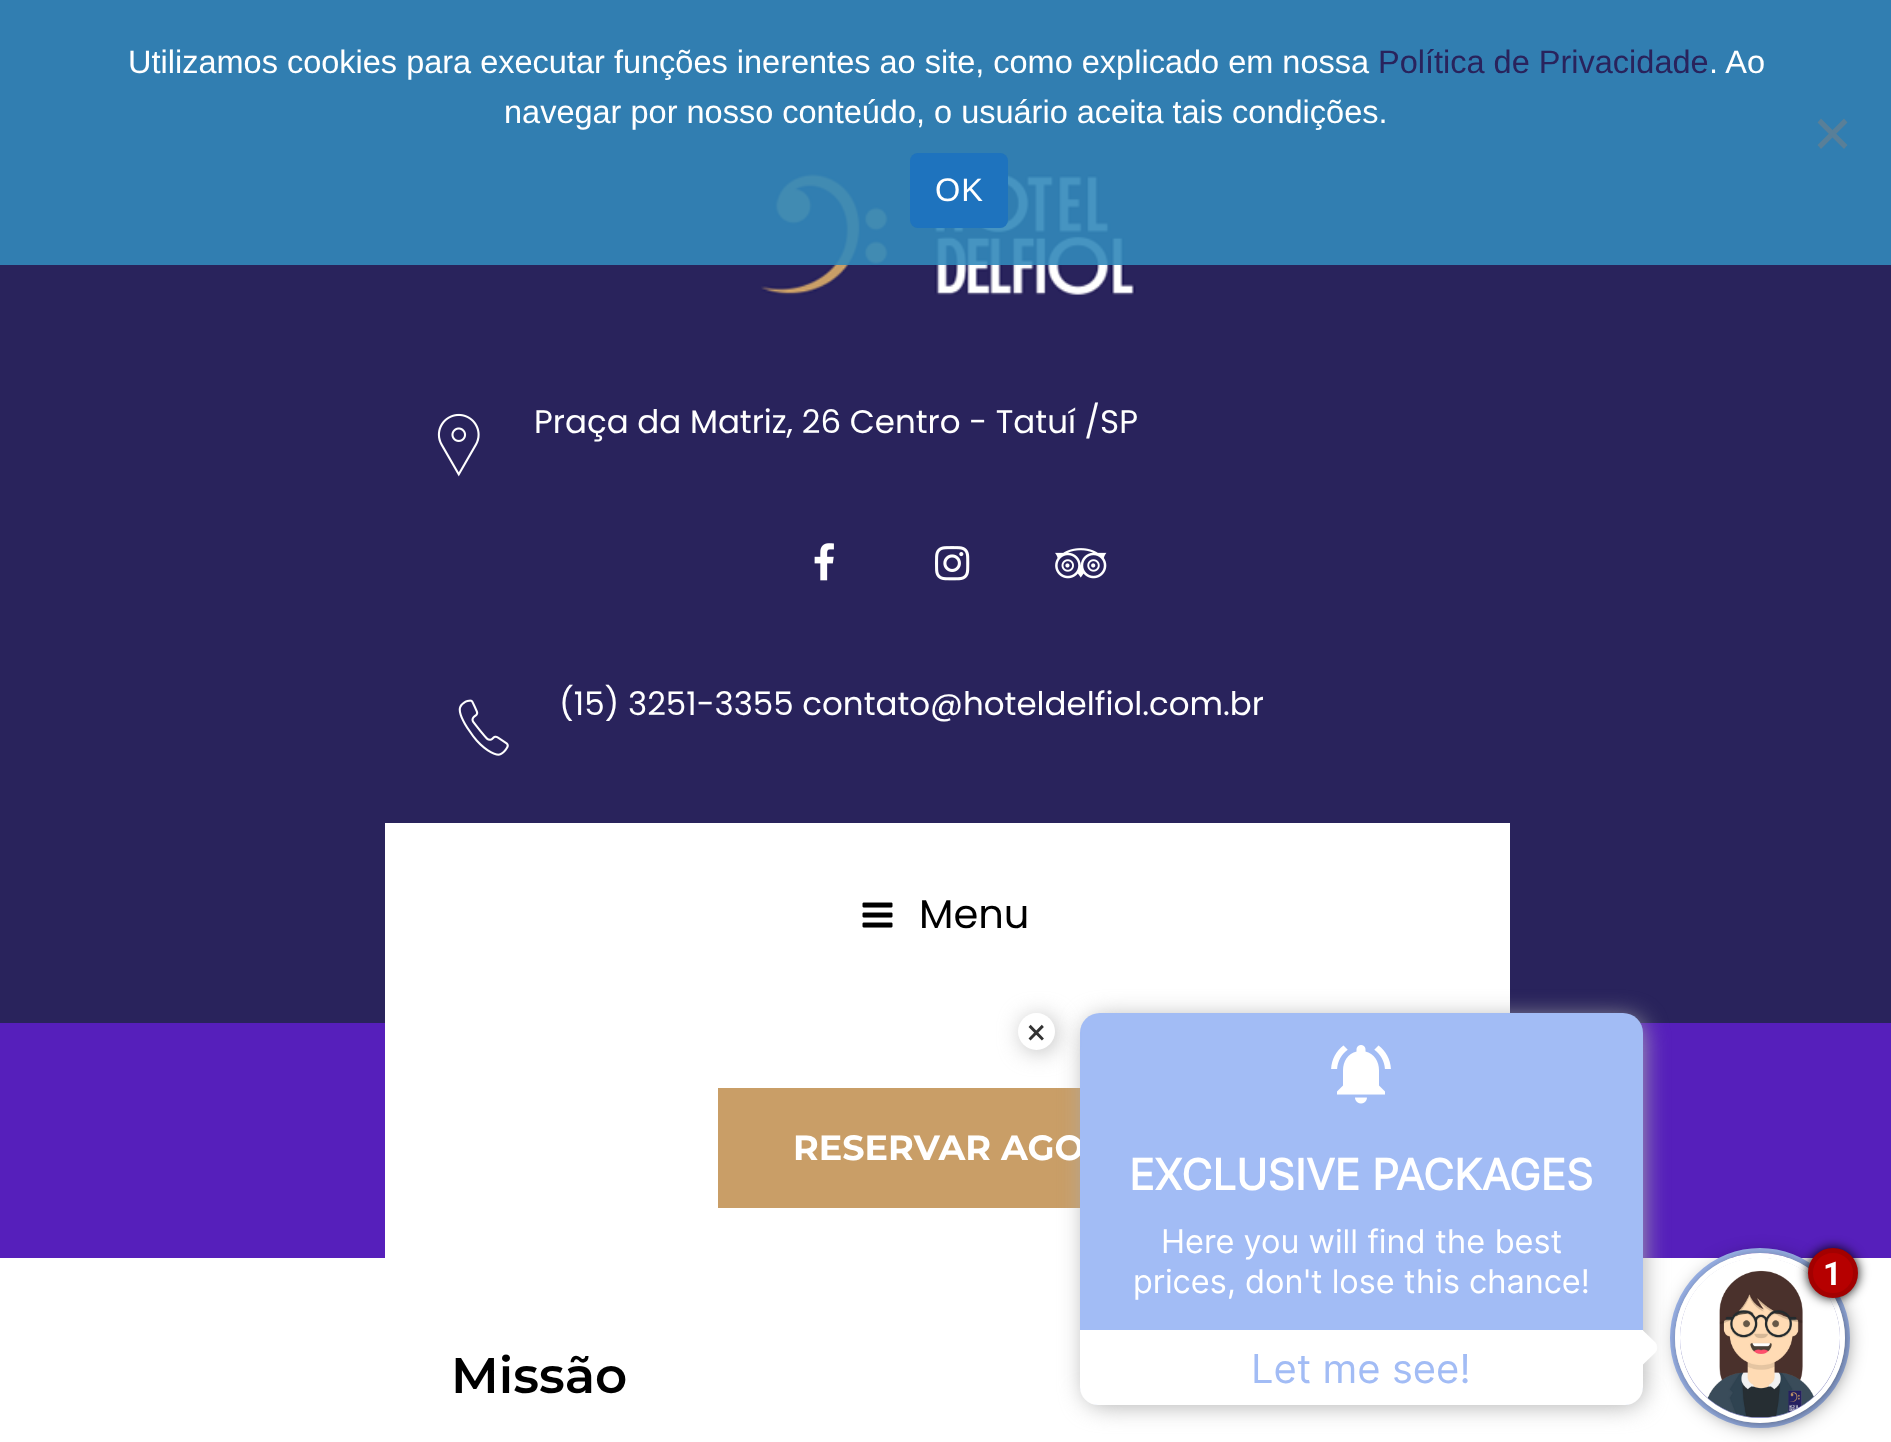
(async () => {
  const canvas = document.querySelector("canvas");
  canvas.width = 1891;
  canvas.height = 1442;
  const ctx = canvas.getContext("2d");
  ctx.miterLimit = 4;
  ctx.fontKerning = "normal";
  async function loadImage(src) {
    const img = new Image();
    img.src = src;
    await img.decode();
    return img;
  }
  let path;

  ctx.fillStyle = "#ffffff";
  ctx.fillRect(0, 0, 1891, 1442);
  ctx.fillStyle = "#29235c";
  ctx.fillRect(0, 0, 1891, 1023);
  ctx.drawImage(await loadImage("img/1.png"), 761, 173, 375, 122);
  ctx.fillStyle = "rgba(50, 136, 186, 0.9)";
  ctx.fillRect(0, 0, 1891, 265);
  ctx.fillStyle = "#597f98";
  path = new Path2D("M1844 118.5L1847.5 122.5L1821 149L1817.5 145Z");
  ctx.fill(path);
  path = new Path2D("M1817.5 122.5L1821 118.5L1847.5 145L1844 149Z");
  ctx.fill(path);
  ctx.fillStyle = "#1e73be";
  ctx.beginPath();
  ctx.roundRect(910, 153, 98, 75, 8);
  ctx.fill();
  ctx.fillStyle = "#561fbb";
  ctx.fillRect(0, 1023, 1891, 235);
  ctx.drawImage(await loadImage("img/2.png"), 437, 413, 43, 64);
  ctx.drawImage(await loadImage("img/3.png"), 814, 543, 20, 38);
  ctx.drawImage(await loadImage("img/4.png"), 935, 546, 35, 35);
  ctx.drawImage(await loadImage("img/5.png"), 1055, 548, 52, 31);
  ctx.drawImage(await loadImage("img/6.png"), 458, 699, 51, 57);
  ctx.fillStyle = "#ffffff";
  ctx.fillRect(385, 823, 1125, 435);
  ctx.drawImage(await loadImage("img/7.png"), 862, 902, 31, 26);
  ctx.fillStyle = "#c99e67";
  ctx.fillRect(718, 1088, 362, 120);
  ctx.fillStyle = "#aaaaaa";
  ctx.filter = "blur(12.5px)";
  ctx.beginPath();
  ctx.roundRect(1085, 1018, 558, 387, 18);
  ctx.fill();
  ctx.filter = "none";
  ctx.beginPath();
  ctx.arc(1760, 1338, 87.5, 0, Math.PI * 2);
  ctx.strokeStyle = "#a2bcf5";
  ctx.lineWidth = 5;
  ctx.stroke();
  ctx.font = "32.5px Liberation Sans";
  ctx.fillStyle = "#ffffff";
  ctx.fillText("Utilizamos cookies para executar funções inerentes ao site, como explicado em nossa", 128, 73);
  ctx.fillStyle = "#29235c";
  ctx.fillText("Política de Privacidade", 1378, 73);
  ctx.fillStyle = "#ffffff";
  ctx.fillText(". Ao", 1709, 73);
  ctx.fillText("navegar por nosso conteúdo, o usuário aceita tais condições.", 504, 123);
  ctx.letterSpacing = "1px";
  ctx.fillText("OK", 935, 201);
  ctx.letterSpacing = "0px";
  ctx.font = "32.5px Poppins";
  ctx.fillText("Praça da Matriz, 26 Centro - Tatuí /SP", 534, 433);
  ctx.fillText("(15) 3251-3355 contato@hoteldelfiol.com.br", 559, 715);
  ctx.font = "40px Poppins";
  ctx.fillStyle = "#000000";
  ctx.fillText("Menu", 919, 928);
  ctx.font = "bold 35px Montserrat";
  ctx.fillStyle = "#ffffff";
  ctx.fillText("RESERVAR AGO", 793, 1160);
  ctx.font = "600 50px Montserrat";
  ctx.fillStyle = "#000000";
  ctx.fillText("Missão", 451, 1393);
  ctx.fillStyle = "#a2bcf5";
  ctx.beginPath();
  ctx.roundRect(1080, 1013, 563, 392, 20);
  ctx.fill();
  ctx.fillStyle = "#aaaaaa";
  ctx.filter = "blur(12.5px)";
  ctx.beginPath();
  ctx.roundRect(1023, 1018, 32, 32, 16);
  ctx.fill();
  ctx.filter = "none";
  ctx.fillStyle = "#ffffff";
  ctx.beginPath();
  ctx.arc(1036.5, 1031.5, 18.5, 0, Math.PI * 2);
  ctx.fill();
  ctx.font = "35px Roboto";
  ctx.fillStyle = "#333333";
  ctx.fillText("×", 1027, 1044);
  ctx.drawImage(await loadImage("img/8.png"), 1331, 1045, 60, 59);
  ctx.font = "bold 42.5px Inter";
  ctx.fillStyle = "#ffffff";
  ctx.fillText("EXCLUSIVE PACKAGES", 1129, 1190);
  ctx.font = "32.5px Inter";
  ctx.fillText("Here you will find the best", 1161, 1253);
  ctx.fillText("prices, don't lose this chance!", 1133, 1293);
  ctx.beginPath();
  ctx.roundRect(1080, 1330, 563, 75, [0, 0, 18, 18]);
  ctx.fill();
  path = new Path2D("M1642.5 1330L1655 1342C1658 1345 1658 1350 1655 1353L1642.5 1365L1625 1347.5Z");
  ctx.fill(path);
  ctx.fillStyle = "#000000";
  ctx.filter = "blur(12.5px)";
  ctx.beginPath();
  ctx.roundRect(1685, 1263, 155, 155, 77.5);
  ctx.fill();
  ctx.filter = "none";
  ctx.beginPath();
  ctx.arc(1760, 1338, 82.5, 0, Math.PI * 2);
  ctx.strokeStyle = "#ffffff";
  ctx.stroke();
  ctx.font = "40px Inter";
  ctx.fillStyle = "#a2bcf5";
  ctx.fillText("Let me see!", 1251, 1383);
  ctx.fillStyle = "#9fa1e3";
  ctx.beginPath();
  ctx.arc(1760, 1338, 80, 0, Math.PI * 2);
  ctx.fill();
  ctx.drawImage(await loadImage("img/9.png"), 1680, 1258, 160, 160);
  ctx.fillStyle = "#000000";
  ctx.filter = "blur(6px)";
  ctx.beginPath();
  ctx.roundRect(1808, 1248, 50, 50, 25);
  ctx.fill();
  ctx.filter = "none";
  ctx.fillStyle = "#b60000";
  ctx.beginPath();
  ctx.arc(1833, 1273, 22.5, 0, Math.PI * 2);
  ctx.fill();
  ctx.strokeStyle = "#a30000";
  ctx.stroke();
  ctx.font = "bold 32.5px Roboto";
  ctx.fillStyle = "#ffffff";
  ctx.fillText("1", 1823, 1285);
})();
